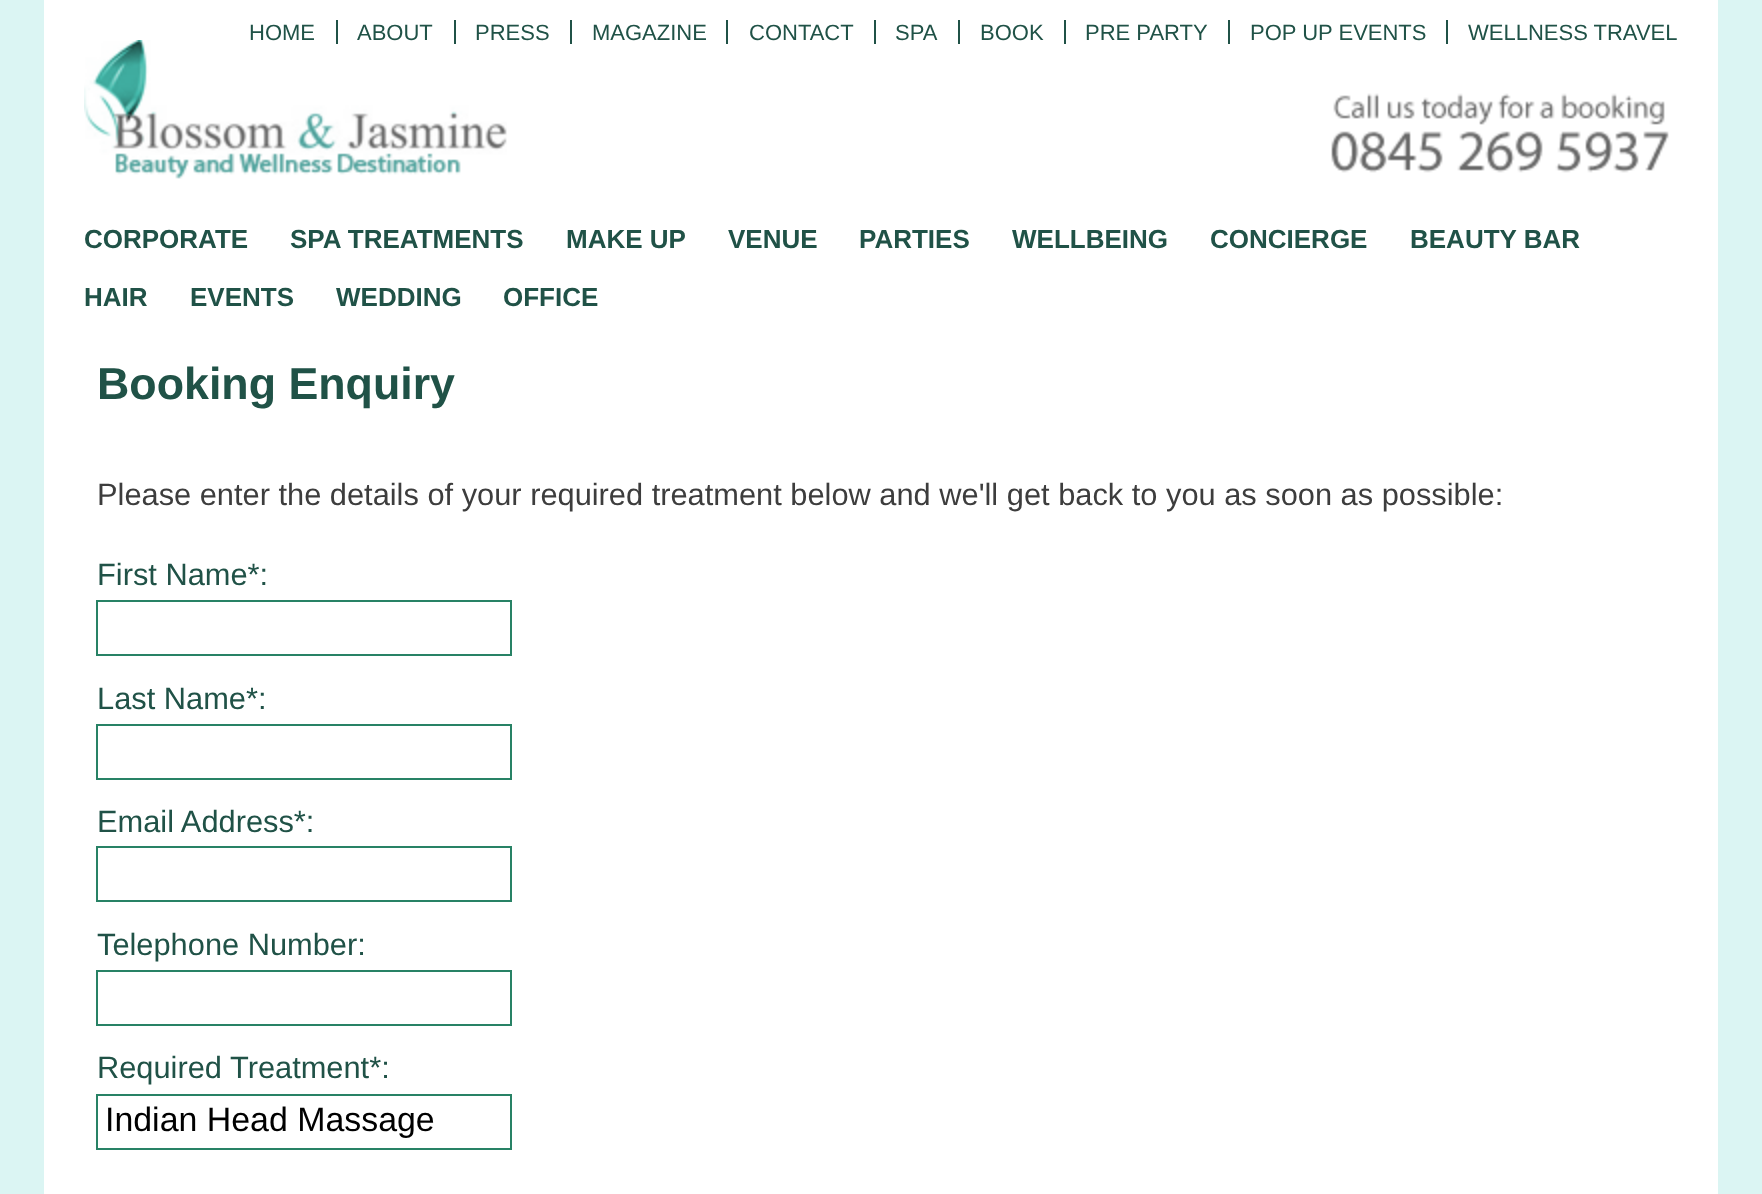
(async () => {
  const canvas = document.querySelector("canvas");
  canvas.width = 1762;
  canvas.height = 1194;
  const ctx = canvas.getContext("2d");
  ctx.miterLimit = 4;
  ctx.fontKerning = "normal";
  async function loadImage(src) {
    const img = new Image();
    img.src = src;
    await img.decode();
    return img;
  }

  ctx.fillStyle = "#dbf5f3";
  ctx.fillRect(0, 0, 1762, 1194);
  ctx.fillStyle = "#ffffff";
  ctx.fillRect(44, 0, 1674, 1194);
  ctx.drawImage(await loadImage("img/1.png"), 84, 40, 423, 139);
  for (const [x, y, w, h, color] of [
    [336, 20, 2, 24, "#205247"],
    [454, 20, 2, 24, "#205247"],
    [570, 20, 2, 24, "#205247"],
    [726, 20, 2, 24, "#205247"],
    [874, 20, 2, 24, "#205247"],
    [958, 20, 2, 24, "#205247"],
    [1064, 20, 2, 24, "#205247"],
    [1228, 20, 2, 24, "#205247"],
    [1446, 20, 2, 24, "#205247"],
  ]) {
    ctx.fillStyle = color;
    ctx.fillRect(x, y, w, h);
  }
  ctx.drawImage(await loadImage("img/2.png"), 1331, 93, 338, 80);
  ctx.strokeStyle = "#288265";
  ctx.lineWidth = 2;
  ctx.strokeRect(97, 601, 414, 54);
  ctx.strokeRect(97, 725, 414, 54);
  ctx.strokeRect(97, 847, 414, 54);
  ctx.strokeRect(97, 971, 414, 54);
  ctx.strokeRect(97, 1095, 414, 54);
  ctx.font = "22px Liberation Sans";
  for (const [text, x, y] of [
    ["HOME", 249, 40],
    ["ABOUT", 357, 40],
    ["PRESS", 475, 40],
    ["MAGAZINE", 592, 40],
    ["CONTACT", 749, 40],
    ["SPA", 895, 40],
    ["BOOK", 980, 40],
    ["PRE PARTY", 1085, 40],
    ["POP UP EVENTS", 1250, 40],
    ["WELLNESS TRAVEL", 1468, 40],
  ]) {
    ctx.fillText(text, x, y);
  }
  ctx.font = "bold 26px Liberation Sans";
  for (const [text, x, y] of [
    ["CORPORATE", 84, 248],
    ["SPA TREATMENTS", 290, 248],
    ["MAKE UP", 566, 248],
    ["VENUE", 728, 248],
    ["PARTIES", 859, 248],
    ["WELLBEING", 1012, 248],
    ["CONCIERGE", 1210, 248],
    ["BEAUTY BAR", 1410, 248],
    ["HAIR", 84, 306],
    ["EVENTS", 190, 306],
    ["WEDDING", 336, 306],
    ["OFFICE", 503, 306],
  ]) {
    ctx.fillText(text, x, y);
  }
  ctx.font = "bold 44.75px Liberation Sans";
  ctx.fillText("Booking Enquiry", 97, 399);
  ctx.font = "30.8px Liberation Sans";
  ctx.fillStyle = "#3d3d3d";
  ctx.fillText("Please enter the details of your required treatment below and we'll get back to you as soon as possible:", 97, 505);
  ctx.fillStyle = "#205247";
  for (const [text, x, y] of [
    ["First Name*:", 97, 585],
    ["Last Name*:", 97, 709],
    ["Email Address*:", 97, 832],
    ["Telephone Number:", 97, 955],
    ["Required Treatment*:", 97, 1078],
  ]) {
    ctx.fillText(text, x, y);
  }
  ctx.font = "33.9px Liberation Sans";
  ctx.fillStyle = "#000000";
  ctx.fillText("Indian Head Massage", 105, 1131);
})();
